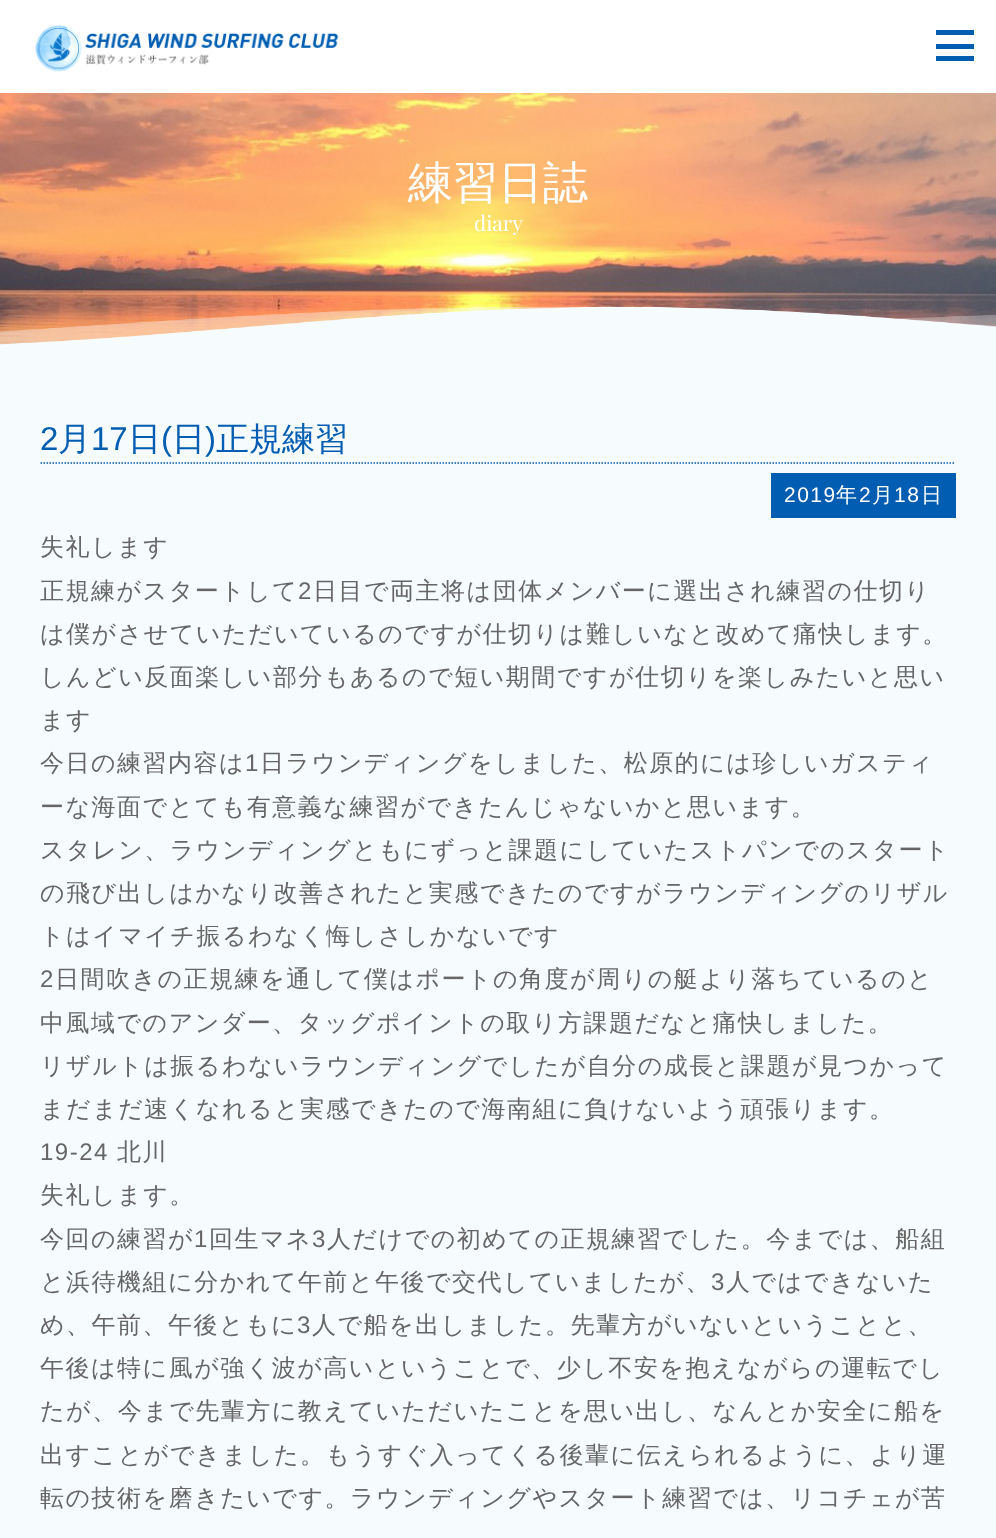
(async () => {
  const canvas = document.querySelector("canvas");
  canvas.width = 996;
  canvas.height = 1538;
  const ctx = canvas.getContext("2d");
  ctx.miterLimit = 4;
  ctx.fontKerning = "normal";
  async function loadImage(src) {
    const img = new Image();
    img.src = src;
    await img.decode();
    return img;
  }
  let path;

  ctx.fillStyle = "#f6fbfe";
  ctx.fillRect(0, 0, 996, 1538);
  ctx.fillStyle = "#ffffff";
  ctx.fillRect(0, 0, 996, 93);
  ctx.drawImage(await loadImage("img/1.png"), 35, 25, 304, 47);
  for (const [x, y, w, h, color] of [
    [936, 30, 38, 5, "#015db2"],
    [936, 44, 38, 5, "#015db2"],
    [936, 56, 38, 5, "#015db2"],
  ]) {
    ctx.fillStyle = color;
    ctx.fillRect(x, y, w, h);
  }
  ctx.drawImage(await loadImage("img/2.png"), 0, 93, 996, 252);
  ctx.drawImage(await loadImage("img/3.png"), 0, 306, 996, 111);
  path = new Path2D("M40.5 463H955.5");
  ctx.strokeStyle = "#015db2";
  ctx.lineWidth = 1.5;
  ctx.setLineDash([1.5, 1.5]);
  ctx.stroke(path);
  ctx.fillRect(771, 473, 185, 45);
  ctx.font = "500 45px WenQuanYi Zen Hei";
  ctx.fillStyle = "#ffffff";
  ctx.fillText("練習日誌", 408, 198);
  ctx.font = "21px Playfair Display";
  ctx.fillText("diary", 474, 231);
  ctx.font = "33px Liberation Sans";
  ctx.fillStyle = "#015db2";
  ctx.fillText("2", 40, 450);
  ctx.font = "500 33px WenQuanYi Zen Hei";
  ctx.fillText("月", 58, 450);
  ctx.font = "33px Liberation Sans";
  ctx.fillText("17", 91, 450);
  ctx.font = "500 33px WenQuanYi Zen Hei";
  ctx.fillText("日", 128, 450);
  ctx.font = "33px Liberation Sans";
  ctx.fillText("(", 161, 450);
  ctx.font = "500 33px WenQuanYi Zen Hei";
  ctx.fillText("日", 172, 450);
  ctx.font = "33px Liberation Sans";
  ctx.fillText(")", 205, 450);
  ctx.font = "500 33px WenQuanYi Zen Hei";
  ctx.fillText("正規練習", 216, 450);
  ctx.letterSpacing = "1.5px";
  ctx.font = "21px Liberation Sans";
  ctx.fillStyle = "#ffffff";
  ctx.fillText("2019", 784, 502);
  ctx.font = "500 21px WenQuanYi Zen Hei";
  ctx.fillText("年", 836, 502);
  ctx.font = "21px Liberation Sans";
  ctx.fillText("2", 859, 502);
  ctx.font = "500 21px WenQuanYi Zen Hei";
  ctx.fillText("月", 872, 502);
  ctx.font = "21px Liberation Sans";
  ctx.fillText("18", 894, 502);
  ctx.font = "500 21px WenQuanYi Zen Hei";
  ctx.fillText("日", 921, 502);
  ctx.font = "500 24px WenQuanYi Zen Hei";
  ctx.fillStyle = "#666666";
  ctx.fillText("失礼します", 40, 555);
  ctx.fillText("正規練がスタートして", 40, 599);
  ctx.font = "24px Liberation Sans";
  ctx.fillText("2", 298, 599);
  ctx.font = "500 24px WenQuanYi Zen Hei";
  for (const [text, x, y] of [
    ["日目で両主将は団体メンバーに選出され練習の仕切り", 313, 599],
    ["は僕がさせていただいているのですが仕切りは難しいなと改めて痛快します。", 40, 642],
    ["しんどい反面楽しい部分もあるので短い期間ですが仕切りを楽しみたいと思い", 40, 685],
    ["ます", 40, 728],
    ["今日の練習内容は", 40, 771],
  ]) {
    ctx.fillText(text, x, y);
  }
  ctx.font = "24px Liberation Sans";
  ctx.fillText("1", 245, 771);
  ctx.font = "500 24px WenQuanYi Zen Hei";
  for (const [text, x, y] of [
    ["日ラウンディングをしました、松原的には珍しいガスティ", 260, 771],
    ["ーな海面でとても有意義な練習ができたんじゃないかと思います。", 40, 815],
    ["スタレン、ラウンディングともにずっと課題にしていたストパンでのスタート", 40, 858],
    ["の飛び出しはかなり改善されたと実感できたのですがラウンディングのリザル", 40, 901],
    ["トはイマイチ振るわなく悔しさしかないです", 40, 944],
  ]) {
    ctx.fillText(text, x, y);
  }
  ctx.font = "24px Liberation Sans";
  ctx.fillText("2", 40, 987);
  ctx.font = "500 24px WenQuanYi Zen Hei";
  for (const [text, x, y] of [
    ["日間吹きの正規練を通して僕はポートの角度が周りの艇より落ちているのと", 55, 987],
    ["中風域でのアンダー、タッグポイントの取り方課題だなと痛快しました。", 40, 1031],
    ["リザルトは振るわないラウンディングでしたが自分の成長と課題が見つかって", 40, 1074],
    ["まだまだ速くなれると実感できたので海南組に負けないよう頑張ります。", 40, 1117],
  ]) {
    ctx.fillText(text, x, y);
  }
  ctx.font = "24px Liberation Sans";
  ctx.fillText("19-24", 40, 1160);
  ctx.font = "500 24px WenQuanYi Zen Hei";
  for (const [text, x, y] of [
    ["北川", 117, 1160],
    ["失礼します。", 40, 1203],
    ["今回の練習が", 40, 1247],
  ]) {
    ctx.fillText(text, x, y);
  }
  ctx.font = "24px Liberation Sans";
  ctx.fillText("1", 194, 1247);
  ctx.font = "500 24px WenQuanYi Zen Hei";
  ctx.fillText("回生マネ", 209, 1247);
  ctx.font = "24px Liberation Sans";
  ctx.fillText("3", 312, 1247);
  ctx.font = "500 24px WenQuanYi Zen Hei";
  ctx.fillText("人だけでの初めての正規練習でした。今までは、船組", 327, 1247);
  ctx.fillText("と浜待機組に分かれて午前と午後で交代していましたが、", 40, 1290);
  ctx.font = "24px Liberation Sans";
  ctx.fillText("3", 711, 1290);
  ctx.font = "500 24px WenQuanYi Zen Hei";
  ctx.fillText("人ではできないた", 726, 1290);
  ctx.fillText("め、午前、午後ともに", 40, 1333);
  ctx.font = "24px Liberation Sans";
  ctx.fillText("3", 297, 1333);
  ctx.font = "500 24px WenQuanYi Zen Hei";
  for (const [text, x, y] of [
    ["人で船を出しました。先輩方がいないということと、", 312, 1333],
    ["午後は特に風が強く波が高いということで、少し不安を抱えながらの運転でし", 40, 1376],
    ["たが、今まで先輩方に教えていただいたことを思い出し、なんとか安全に船を", 40, 1419],
    ["出すことができました。もうすぐ入ってくる後輩に伝えられるように、より運", 40, 1463],
    ["転の技術を磨きたいです。ラウンディングやスタート練習では、リコチェが苦", 40, 1506],
  ]) {
    ctx.fillText(text, x, y);
  }
})();
